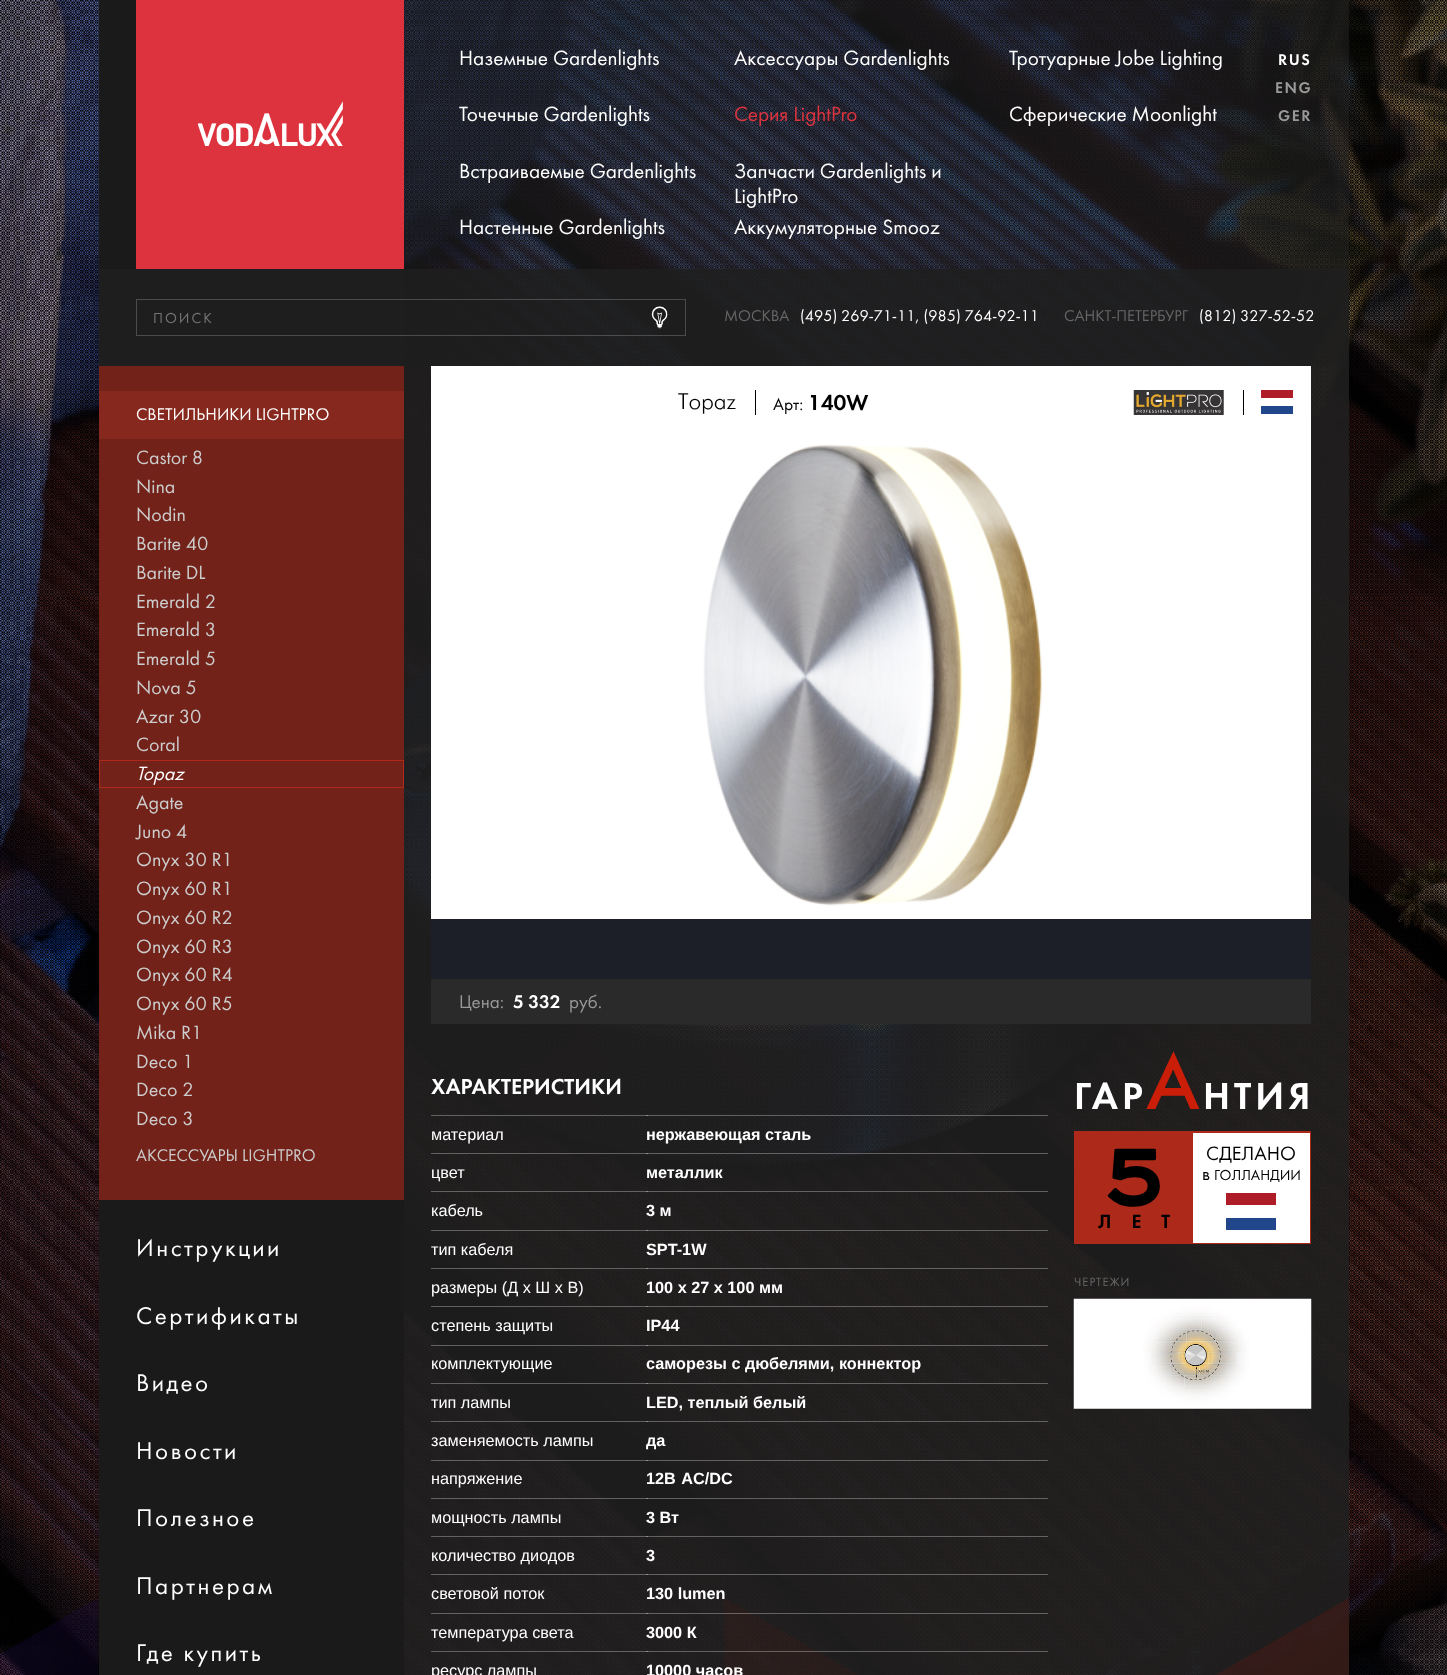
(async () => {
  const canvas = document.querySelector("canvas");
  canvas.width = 1447;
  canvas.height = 1675;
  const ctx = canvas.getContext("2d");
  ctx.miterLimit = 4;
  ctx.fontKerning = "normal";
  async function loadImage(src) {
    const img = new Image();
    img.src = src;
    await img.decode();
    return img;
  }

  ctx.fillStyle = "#ffffff";
  ctx.fillRect(0, 0, 1447, 1675);
  ctx.drawImage(await loadImage("img/1.png"), 0, 0, 1447, 1675);
  ctx.drawImage(await loadImage("img/2.png"), 0, 0, 1447, 1675);
  ctx.fillStyle = "#1a1a1a";
  ctx.fillRect(99, 0, 305, 1675);
  ctx.fillStyle = "#dd333e";
  ctx.fillRect(136, 0, 268, 269);
  ctx.drawImage(await loadImage("img/3.png"), 198, 101, 145, 45);
  ctx.fillStyle = "rgba(32, 32, 32, 0.6)";
  ctx.fillRect(404, 0, 945, 269);
  ctx.fillStyle = "rgba(31, 31, 31, 0.95)";
  ctx.fillRect(99, 269, 1250, 97);
  ctx.strokeStyle = "rgba(255, 255, 255, 0.2)";
  ctx.strokeRect(136.5, 299.5, 549, 36);
  ctx.drawImage(await loadImage("img/4.png"), 651, 306, 17, 23);
  ctx.fillStyle = "rgba(32, 32, 32, 0.88)";
  ctx.fillRect(404, 366, 945, 1309);
  ctx.drawImage(await loadImage("img/5.png"), 0, 1598, 98, 77);
  ctx.fillStyle = "#722219";
  ctx.fillRect(99, 366, 305, 834);
  ctx.fillStyle = "#86281d";
  ctx.fillRect(99, 391, 305, 48);
  ctx.strokeStyle = "#ae291a";
  ctx.strokeRect(99.5, 760.5, 304, 27);
  ctx.fillStyle = "#ffffff";
  ctx.fillRect(431, 366, 880, 73);
  ctx.fillStyle = "#000000";
  ctx.fillRect(755, 390, 1, 25);
  ctx.drawImage(await loadImage("img/6.png"), 1133, 390, 91, 25);
  for (const [x, y, w, h, color] of [
    [1243, 390, 1, 25, "#000000"],
    [1261, 390, 32, 8, "#ae1c28"],
    [1261, 406, 32, 8, "#21468b"],
    [431, 919, 880, 60, "#1d1f28"],
  ]) {
    ctx.fillStyle = color;
    ctx.fillRect(x, y, w, h);
  }
  ctx.drawImage(await loadImage("img/7.png"), 431, 439, 880, 480);
  for (const [x, y, w, h, color] of [
    [431, 979, 880, 45, "#2a2a2a"],
    [646, 1115, 402, 1, "rgba(255, 255, 255, 0.3)"],
    [431, 1115, 217, 1, "rgba(255, 255, 255, 0.3)"],
    [646, 1153, 402, 1, "rgba(255, 255, 255, 0.3)"],
    [431, 1153, 217, 1, "rgba(255, 255, 255, 0.3)"],
    [646, 1191, 402, 1, "rgba(255, 255, 255, 0.3)"],
    [431, 1191, 217, 1, "rgba(255, 255, 255, 0.3)"],
    [646, 1230, 402, 1, "rgba(255, 255, 255, 0.3)"],
    [431, 1230, 217, 1, "rgba(255, 255, 255, 0.3)"],
    [646, 1268, 402, 1, "rgba(255, 255, 255, 0.3)"],
    [431, 1268, 217, 1, "rgba(255, 255, 255, 0.3)"],
    [646, 1306, 402, 1, "rgba(255, 255, 255, 0.3)"],
    [431, 1306, 217, 1, "rgba(255, 255, 255, 0.3)"],
    [646, 1345, 402, 1, "rgba(255, 255, 255, 0.3)"],
    [431, 1345, 217, 1, "rgba(255, 255, 255, 0.3)"],
    [646, 1383, 402, 1, "rgba(255, 255, 255, 0.3)"],
    [431, 1383, 217, 1, "rgba(255, 255, 255, 0.3)"],
    [646, 1421, 402, 1, "rgba(255, 255, 255, 0.3)"],
    [431, 1421, 217, 1, "rgba(255, 255, 255, 0.3)"],
    [646, 1460, 402, 1, "rgba(255, 255, 255, 0.3)"],
    [431, 1460, 217, 1, "rgba(255, 255, 255, 0.3)"],
    [646, 1498, 402, 1, "rgba(255, 255, 255, 0.3)"],
    [431, 1498, 217, 1, "rgba(255, 255, 255, 0.3)"],
    [646, 1536, 402, 1, "rgba(255, 255, 255, 0.3)"],
    [431, 1536, 217, 1, "rgba(255, 255, 255, 0.3)"],
    [646, 1574, 402, 1, "rgba(255, 255, 255, 0.3)"],
    [431, 1574, 217, 1, "rgba(255, 255, 255, 0.3)"],
  ]) {
    ctx.fillStyle = color;
    ctx.fillRect(x, y, w, h);
  }
  ctx.drawImage(await loadImage("img/9.png"), 724, 1598, 625, 77);
  for (const [x, y, w, h, color] of [
    [646, 1613, 402, 1, "rgba(255, 255, 255, 0.3)"],
    [431, 1613, 217, 1, "rgba(255, 255, 255, 0.3)"],
    [646, 1651, 402, 1, "rgba(255, 255, 255, 0.3)"],
    [431, 1651, 217, 1, "rgba(255, 255, 255, 0.3)"],
    [1074, 1131, 237, 113, "#ad2919"],
    [1193, 1133, 117, 110, "#ffffff"],
    [1226, 1193, 50, 12, "#ae1c28"],
    [1226, 1218, 50, 12, "#21468b"],
  ]) {
    ctx.fillStyle = color;
    ctx.fillRect(x, y, w, h);
  }
  ctx.drawImage(await loadImage("img/8.png"), 1073, 1298, 239, 111);
  ctx.font = "21.25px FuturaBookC";
  ctx.fillStyle = "#ffffff";
  for (const [text, x, y] of [
    ["Наземные Gardenlights", 459, 65],
    ["Точечные Gardenlights", 459, 121],
    ["Встраиваемые Gardenlights", 459, 178],
    ["Настенные Gardenlights", 459, 234],
    ["Аксессуары Gardenlights", 734, 65],
  ]) {
    ctx.fillText(text, x, y);
  }
  ctx.fillStyle = "#dd333e";
  ctx.fillText("Серия LightPro", 734, 121);
  ctx.fillStyle = "#ffffff";
  for (const [text, x, y] of [
    ["Запчасти Gardenlights и", 734, 178],
    ["LightPro", 734, 203],
    ["Аккумуляторные Smooz", 734, 234],
    ["Тротуарные Jobe Lighting", 1009, 65],
    ["Сферические Moonlight", 1009, 121],
  ]) {
    ctx.fillText(text, x, y);
  }
  ctx.letterSpacing = "1.5px";
  ctx.font = "600 16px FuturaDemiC";
  ctx.fillText("RUS", 1278, 65);
  ctx.fillStyle = "#999999";
  ctx.fillText("ENG", 1275, 93);
  ctx.fillText("GER", 1278, 121);
  ctx.letterSpacing = "2px";
  ctx.font = "15px FuturaBookC";
  ctx.fillStyle = "#757575";
  ctx.fillText("ПОИСК", 153, 323);
  ctx.letterSpacing = "0px";
  ctx.font = "16.25px FuturaBookC";
  ctx.fillStyle = "#666666";
  ctx.fillText("МОСКВА", 724, 321);
  ctx.fillStyle = "#ffffff";
  ctx.fillText("(495) 269-71-11, (985) 764-92-11", 800, 321);
  ctx.fillStyle = "#666666";
  ctx.fillText("САНКТ-ПЕТЕРБУРГ", 1064, 321);
  ctx.fillStyle = "#ffffff";
  ctx.fillText("(812) 327-52-52", 1199, 321);
  ctx.font = "17.5px FuturaBookC";
  ctx.fillText("СВЕТИЛЬНИКИ LIGHTPRO", 136, 420);
  ctx.font = "20px FuturaBookC";
  ctx.fillStyle = "#cccccc";
  for (const [text, x, y] of [
    ["Castor 8", 136, 464],
    ["Nina", 136, 493],
    ["Nodin", 136, 521],
    ["Barite 40", 136, 550],
    ["Barite DL", 136, 579],
    ["Emerald 2", 136, 608],
    ["Emerald 3", 136, 636],
    ["Emerald 5", 136, 665],
    ["Nova 5", 136, 694],
    ["Azar 30", 136, 723],
    ["Coral", 136, 751],
  ]) {
    ctx.fillText(text, x, y);
  }
  ctx.font = "italic 20px FuturaBookC";
  ctx.fillStyle = "#ffffff";
  ctx.fillText("Topaz", 136, 780);
  ctx.font = "20px FuturaBookC";
  ctx.fillStyle = "#cccccc";
  for (const [text, x, y] of [
    ["Agate", 136, 809],
    ["Juno 4", 136, 838],
    ["Onyx 30 R1", 136, 866],
    ["Onyx 60 R1", 136, 895],
    ["Onyx 60 R2", 136, 924],
    ["Onyx 60 R3", 136, 953],
    ["Onyx 60 R4", 136, 981],
    ["Onyx 60 R5", 136, 1010],
    ["Mika R1", 136, 1039],
    ["Deco 1", 136, 1068],
    ["Deco 2", 136, 1096],
    ["Deco 3", 136, 1125],
  ]) {
    ctx.fillText(text, x, y);
  }
  ctx.font = "17.5px FuturaBookC";
  ctx.fillText("АКСЕССУАРЫ LIGHTPRO", 136, 1161);
  ctx.letterSpacing = "2.5px";
  ctx.font = "25px FuturaBookC";
  ctx.fillStyle = "#ffffff";
  for (const [text, x, y] of [
    ["Инструкции", 136, 1256],
    ["Сертификаты", 136, 1324],
    ["Видео", 136, 1391],
    ["Новости", 136, 1459],
    ["Полезное", 136, 1526],
    ["Партнерам", 136, 1594],
    ["Где купить", 136, 1661],
  ]) {
    ctx.fillText(text, x, y);
  }
  ctx.letterSpacing = "0px";
  ctx.font = "300 22.5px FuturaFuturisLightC";
  ctx.fillStyle = "#000000";
  ctx.fillText("Topaz", 678, 409);
  ctx.font = "17.5px FuturaBookC";
  ctx.fillText("Арт:", 773, 410);
  ctx.font = "600 22.5px FuturaDemiC";
  ctx.fillText("140W", 808, 410);
  ctx.font = "19px FuturaBookC";
  ctx.fillStyle = "#999999";
  ctx.fillText("Цена:", 459, 1008);
  ctx.font = "600 19px FuturaDemiC";
  ctx.fillStyle = "#ffffff";
  ctx.fillText("5 332", 513, 1008);
  ctx.font = "19px FuturaBookC";
  ctx.fillStyle = "#999999";
  ctx.fillText("руб.", 569, 1008);
  ctx.font = "600 22.5px FuturaDemiC";
  ctx.fillStyle = "#ffffff";
  ctx.fillText("ХАРАКТЕРИСТИКИ", 431, 1094);
  ctx.font = "16.25px Liberation Sans";
  ctx.fillText("материал", 431, 1140);
  ctx.font = "bold 16.25px Liberation Sans";
  ctx.fillText("нержавеющая сталь", 646, 1140);
  ctx.font = "16.25px Liberation Sans";
  ctx.fillText("цвет", 431, 1178);
  ctx.font = "bold 16.25px Liberation Sans";
  ctx.fillText("металлик", 646, 1178);
  ctx.font = "16.25px Liberation Sans";
  ctx.fillText("кабель", 431, 1216);
  ctx.font = "bold 16.25px Liberation Sans";
  ctx.fillText("3 м", 646, 1216);
  ctx.font = "16.25px Liberation Sans";
  ctx.fillText("тип кабеля", 431, 1255);
  ctx.font = "bold 16.25px Liberation Sans";
  ctx.fillText("SPT-1W", 646, 1255);
  ctx.font = "16.25px Liberation Sans";
  ctx.fillText("размеры (Д х Ш х В)", 431, 1293);
  ctx.font = "bold 16.25px Liberation Sans";
  ctx.fillText("100 x 27 х 100 мм", 646, 1293);
  ctx.font = "16.25px Liberation Sans";
  ctx.fillText("степень защиты", 431, 1331);
  ctx.font = "bold 16.25px Liberation Sans";
  ctx.fillText("IP44", 646, 1331);
  ctx.font = "16.25px Liberation Sans";
  ctx.fillText("комплектующие", 431, 1369);
  ctx.font = "bold 16.25px Liberation Sans";
  ctx.fillText("саморезы с дюбелями, коннектор", 646, 1369);
  ctx.font = "16.25px Liberation Sans";
  ctx.fillText("тип лампы", 431, 1408);
  ctx.font = "bold 16.25px Liberation Sans";
  ctx.fillText("LED, теплый белый", 646, 1408);
  ctx.font = "16.25px Liberation Sans";
  ctx.fillText("заменяемость лампы", 431, 1446);
  ctx.font = "bold 16.25px Liberation Sans";
  ctx.fillText("да", 646, 1446);
  ctx.font = "16.25px Liberation Sans";
  ctx.fillText("напряжение", 431, 1484);
  ctx.wordSpacing = "1px";
  ctx.font = "bold 16.25px Liberation Sans";
  ctx.fillText("12В AC/DC", 646, 1484);
  ctx.wordSpacing = "0px";
  ctx.font = "16.25px Liberation Sans";
  ctx.fillText("мощность лампы", 431, 1523);
  ctx.font = "bold 16.25px Liberation Sans";
  ctx.fillText("3 Вт", 646, 1523);
  ctx.font = "16.25px Liberation Sans";
  ctx.fillText("количество диодов", 431, 1561);
  ctx.font = "bold 16.25px Liberation Sans";
  ctx.fillText("3", 646, 1561);
  ctx.font = "16.25px Liberation Sans";
  ctx.fillText("световой поток", 431, 1599);
  ctx.font = "bold 16.25px Liberation Sans";
  ctx.fillText("130 lumen", 646, 1599);
  ctx.font = "16.25px Liberation Sans";
  ctx.fillText("температура света", 431, 1638);
  ctx.font = "bold 16.25px Liberation Sans";
  ctx.fillText("3000 К", 646, 1638);
  ctx.font = "16.25px Liberation Sans";
  ctx.fillText("ресурс лампы", 431, 1676);
  ctx.font = "bold 16.25px Liberation Sans";
  ctx.fillText("10000 часов", 646, 1676);
  ctx.letterSpacing = "4px";
  ctx.font = "600 39px FuturaDemiC";
  ctx.fillText("ГАР", 1074, 1109);
  ctx.font = "78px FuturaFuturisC";
  ctx.fillStyle = "#cb1e09";
  ctx.fillText("А", 1146, 1109);
  ctx.font = "600 39px FuturaDemiC";
  ctx.fillStyle = "#ffffff";
  ctx.fillText("НТИЯ", 1203, 1109);
  ctx.letterSpacing = "0px";
  ctx.font = "bold 105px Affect";
  ctx.fillStyle = "#000000";
  ctx.fillText("5", 1104, 1206);
  ctx.letterSpacing = "20px";
  ctx.font = "600 20px FuturaDemiC";
  ctx.fillText("ЛЕТ", 1098, 1228);
  ctx.letterSpacing = "0px";
  ctx.font = "20px FuturaBookC";
  ctx.fillText("СДЕЛАНО", 1206, 1160);
  ctx.font = "19px FuturaBookC";
  ctx.fillText("в", 1202, 1180);
  ctx.font = "15px FuturaBookC";
  ctx.fillText("ГОЛЛАНДИИ", 1214, 1180);
  ctx.letterSpacing = "1px";
  ctx.font = "12.5px FuturaBookC";
  ctx.fillStyle = "#666666";
  ctx.fillText("ЧЕРТЕЖИ", 1074, 1286);
})();
